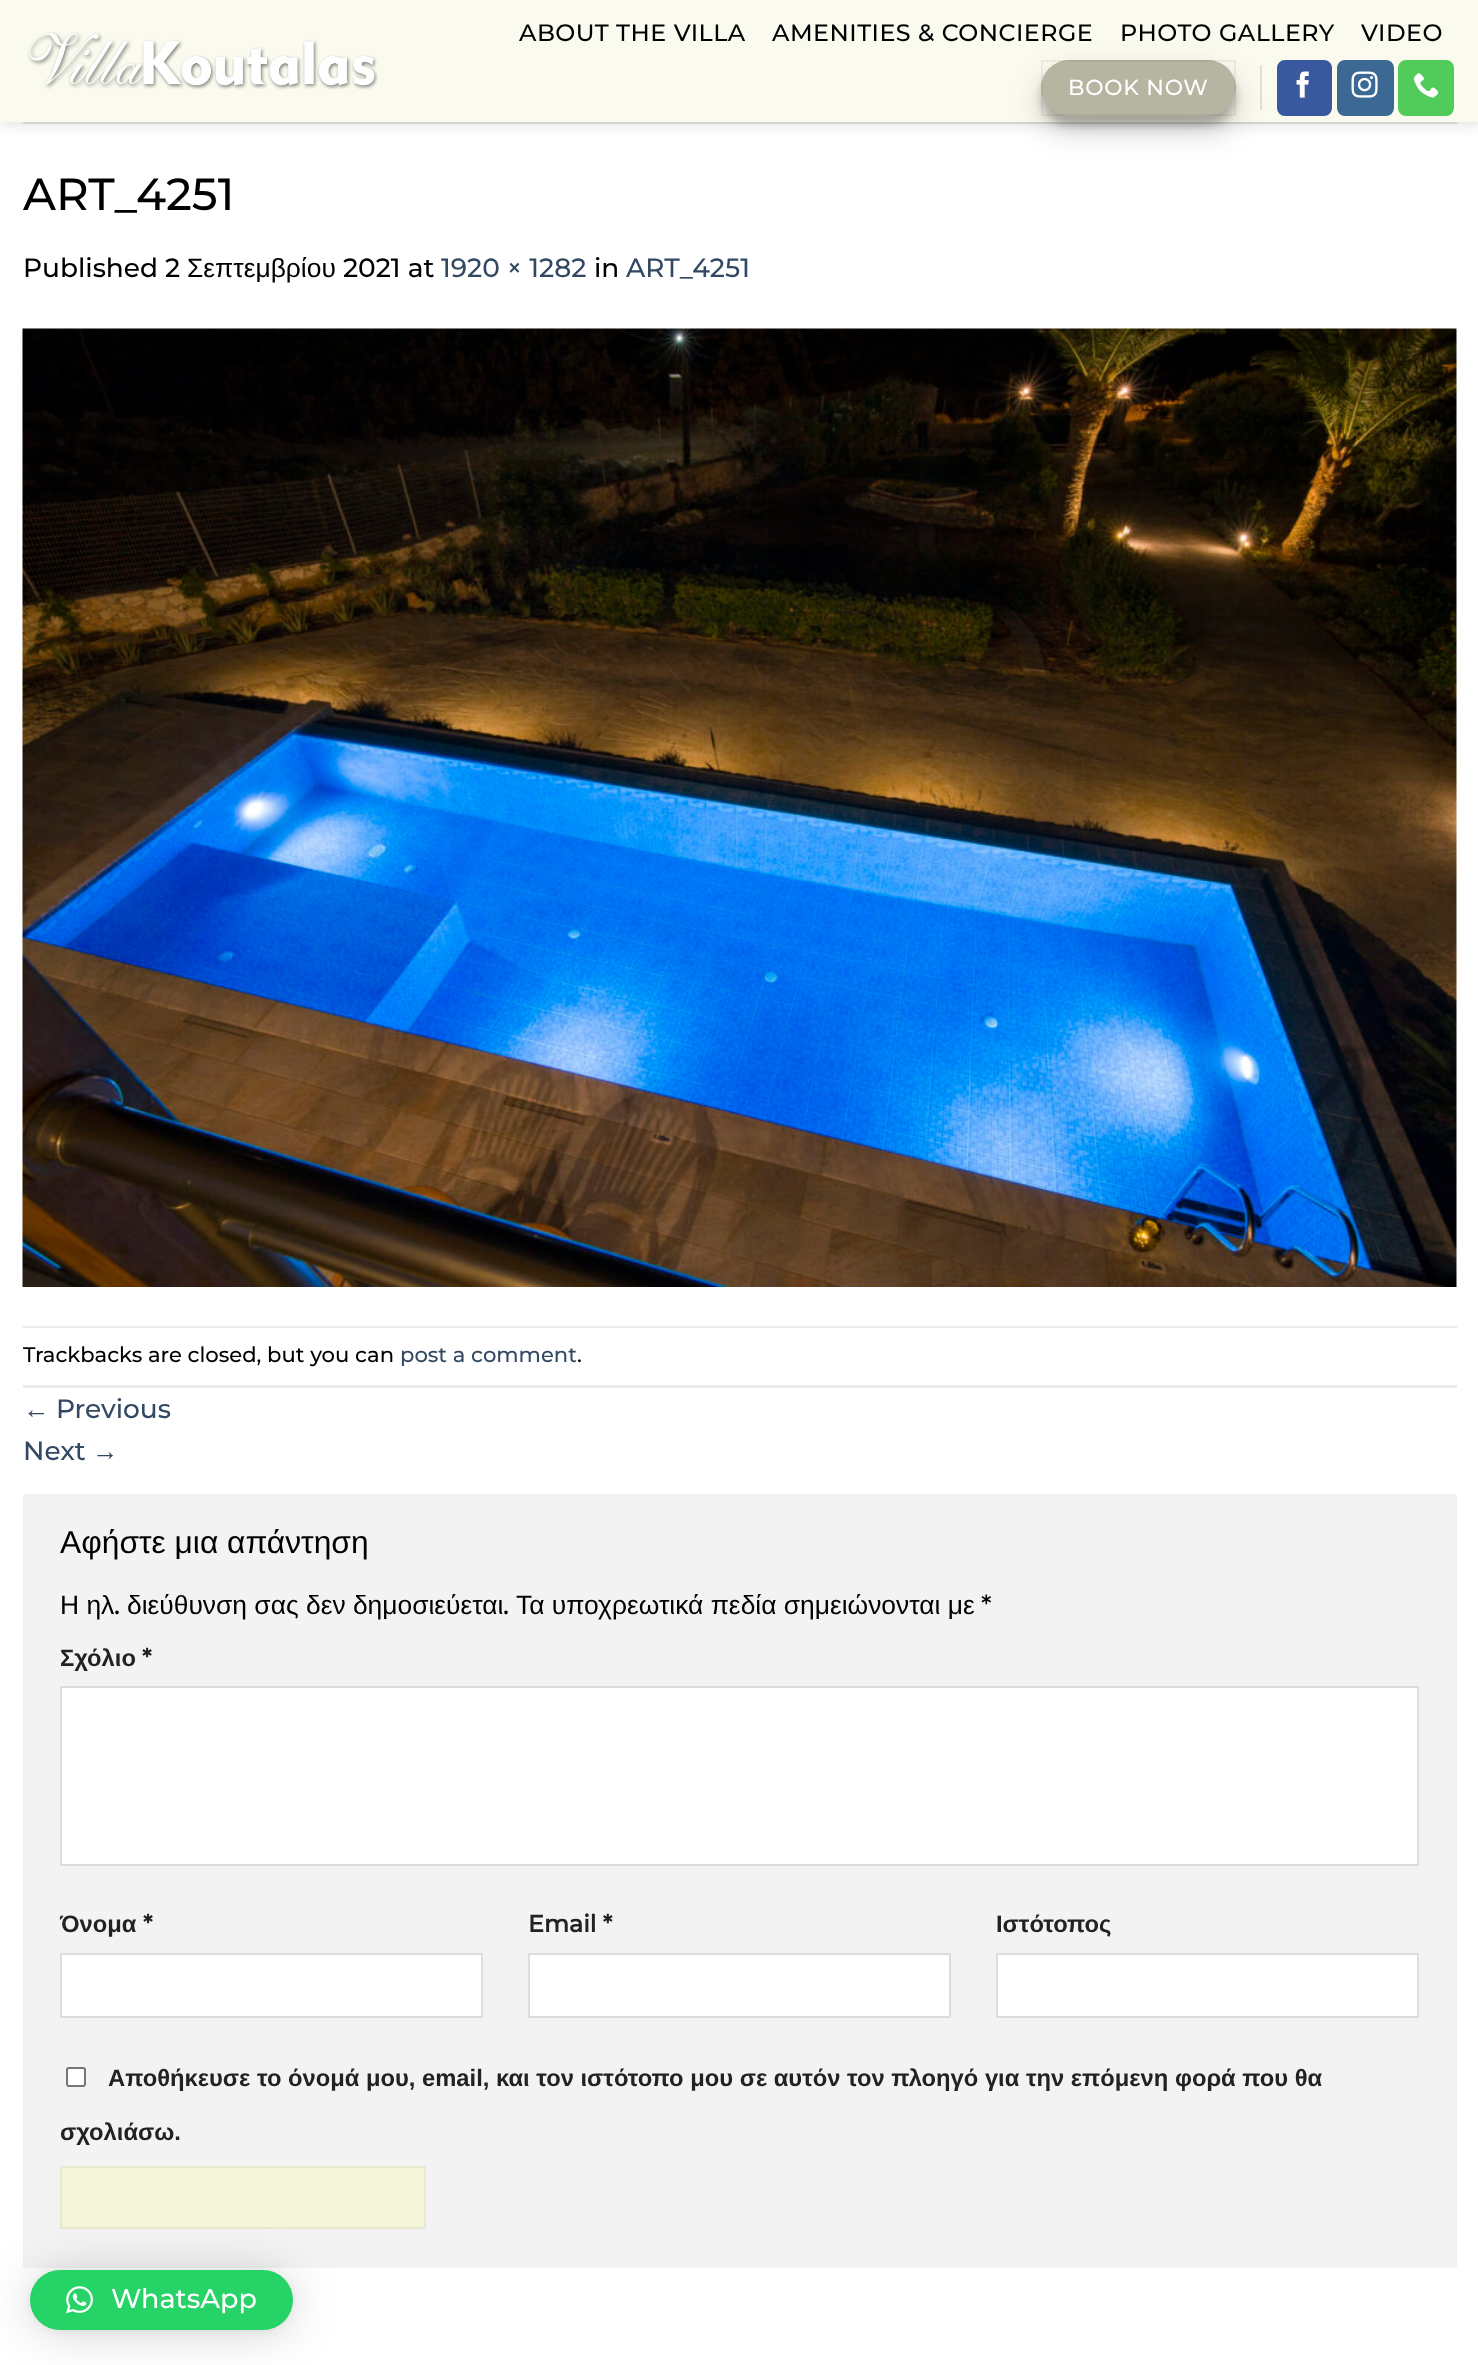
(async () => {
  const canvas = document.querySelector("canvas");
  canvas.width = 1478;
  canvas.height = 2365;
  const ctx = canvas.getContext("2d");
  ctx.miterLimit = 4;
  ctx.fontKerning = "normal";
  async function loadImage(src) {
    const img = new Image();
    img.src = src;
    await img.decode();
    return img;
  }
  let path;

  ctx.fillStyle = "#ffffff";
  ctx.fillRect(0, 0, 1478, 2365);
  ctx.save();
  path = new Path2D("M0 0H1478V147H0ZM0 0H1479V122H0Z");
  ctx.clip(path, "evenodd");
  ctx.fillStyle = "rgba(0, 0, 0, 0.15)";
  ctx.filter = "blur(7.5px)";
  ctx.beginPath();
  ctx.rect(2, 2, 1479, 121);
  ctx.fill();
  ctx.filter = "none";
  ctx.restore();
  ctx.fillStyle = "rgba(245, 245, 220, 0.49)";
  ctx.fillRect(0, 0, 1478, 122);
  ctx.drawImage(await loadImage("img/1.png"), 27, 32, 351, 58);
  ctx.fillStyle = "rgba(0, 0, 0, 0.22)";
  ctx.filter = "blur(4.5px)";
  ctx.beginPath();
  ctx.roundRect(1041, 69, 195, 56, 28);
  ctx.fill();
  ctx.filter = "none";
  ctx.fillStyle = "rgba(0, 0, 0, 0.19)";
  ctx.filter = "blur(15px)";
  ctx.beginPath();
  ctx.roundRect(1041, 75, 195, 56, 28);
  ctx.fill();
  ctx.filter = "none";
  ctx.fillStyle = "#b5b5a2";
  ctx.beginPath();
  ctx.roundRect(1041, 60, 195, 56, 28);
  ctx.fill();
  ctx.strokeStyle = "rgba(0, 0, 0, 0.05)";
  ctx.lineWidth = 2;
  ctx.strokeRect(1042, 61, 193, 54);
  ctx.fillStyle = "#e0e0d5";
  ctx.fillRect(1260, 65, 2, 45);
  ctx.fillStyle = "#3a589d";
  ctx.beginPath();
  ctx.roundRect(1278, 61, 53, 54, 7);
  ctx.fill();
  ctx.strokeStyle = "#3a589d";
  ctx.stroke();
  ctx.drawImage(await loadImage("img/2.png"), 1296, 71, 13, 27);
  ctx.fillStyle = "#3b6994";
  ctx.beginPath();
  ctx.roundRect(1338, 61, 55, 54, 7);
  ctx.fill();
  ctx.strokeStyle = "#3b6994";
  ctx.stroke();
  ctx.drawImage(await loadImage("img/3.png"), 1351, 71, 27, 27);
  ctx.fillStyle = "#51cb5a";
  ctx.beginPath();
  ctx.roundRect(1399, 61, 54, 54, 7);
  ctx.fill();
  ctx.strokeStyle = "#51cb5a";
  ctx.stroke();
  ctx.drawImage(await loadImage("img/4.png"), 1413, 73, 26, 25);
  ctx.fillStyle = "rgba(0, 0, 0, 0.1)";
  ctx.fillRect(23, 122, 1434, 2);
  ctx.drawImage(await loadImage("img/5.png"), 22, 328, 1435, 959);
  for (const [x, y, w, h, color] of [
    [23, 1326, 1434, 2, "#ececec"],
    [23, 1385, 1434, 3, "#ececec"],
    [23, 1494, 1434, 774, "#f3f3f3"],
  ]) {
    ctx.fillStyle = color;
    ctx.fillRect(x, y, w, h);
  }
  ctx.fillStyle = "#ffffff";
  ctx.beginPath();
  ctx.rect(61, 1687, 1357, 178);
  ctx.fill();
  ctx.strokeStyle = "#dddddd";
  ctx.stroke();
  ctx.beginPath();
  ctx.rect(61, 1954, 421, 63);
  ctx.fill();
  ctx.stroke();
  ctx.beginPath();
  ctx.rect(529, 1954, 421, 63);
  ctx.fill();
  ctx.stroke();
  ctx.beginPath();
  ctx.rect(997, 1954, 421, 63);
  ctx.fill();
  ctx.stroke();
  ctx.beginPath();
  ctx.roundRect(67, 2068, 18, 18, 2);
  ctx.fill();
  ctx.strokeStyle = "#767676";
  ctx.stroke();
  ctx.fillStyle = "#f5f5dc";
  ctx.beginPath();
  ctx.rect(61, 2167, 364, 61);
  ctx.fill();
  ctx.strokeStyle = "#e9e9d1";
  ctx.stroke();
  ctx.fillStyle = "rgba(0, 0, 0, 0.16)";
  ctx.filter = "blur(24px)";
  ctx.beginPath();
  ctx.roundRect(30, 2273, 263, 60, 30);
  ctx.fill();
  ctx.filter = "none";
  ctx.fillStyle = "rgba(0, 0, 0, 0.06)";
  ctx.filter = "blur(4.5px)";
  ctx.beginPath();
  ctx.roundRect(30, 2271, 263, 60, 30);
  ctx.fill();
  ctx.filter = "none";
  ctx.fillStyle = "#25d366";
  ctx.beginPath();
  ctx.roundRect(30, 2270, 263, 60, 30);
  ctx.fill();
  ctx.drawImage(await loadImage("img/6.png"), 66, 2286, 27, 28);
  ctx.letterSpacing = "0.5px";
  ctx.font = "500 23.75px Montserrat";
  ctx.fillStyle = "#000000";
  for (const [text, x, y] of [
    ["ABOUT THE VILLA", 519, 41],
    ["AMENITIES & CONCIERGE", 772, 41],
    ["PHOTO GALLERY", 1120, 41],
    ["VIDEO", 1361, 41],
  ]) {
    ctx.fillText(text, x, y);
  }
  ctx.letterSpacing = "0.75px";
  ctx.font = "500 21.75px Montserrat";
  ctx.fillStyle = "#ffffff";
  ctx.fillText("BOOK NOW", 1068, 95);
  ctx.letterSpacing = "0px";
  ctx.font = "500 45px Montserrat";
  ctx.fillStyle = "#000000";
  ctx.fillText("ART_4251", 23, 210);
  ctx.font = "500 26.4px Montserrat";
  ctx.fillText("Published 2", 23, 277);
  ctx.font = "26.4px Liberation Sans";
  ctx.fillText("Σεπτεμβρίου", 187, 277);
  ctx.font = "500 26.4px Montserrat";
  ctx.fillText("2021 at", 343, 277);
  ctx.fillStyle = "#334862";
  ctx.fillText("1920 × 1282", 441, 277);
  ctx.fillStyle = "#000000";
  ctx.fillText("in", 594, 277);
  ctx.fillStyle = "#334862";
  ctx.fillText("ART_4251", 626, 277);
  ctx.font = "500 21.1px Montserrat";
  ctx.fillStyle = "#000000";
  ctx.fillText("Trackbacks are closed, but you can", 23, 1362);
  ctx.fillStyle = "#334862";
  ctx.fillText("post a comment", 400, 1362);
  ctx.fillStyle = "#000000";
  ctx.fillText(".", 577, 1362);
  ctx.font = "26.4px Liberation Sans";
  ctx.fillStyle = "#334862";
  ctx.fillText("←", 23, 1418);
  ctx.font = "500 26.4px Montserrat";
  ctx.fillText("Previous", 56, 1418);
  ctx.fillText("Next", 23, 1460);
  ctx.font = "26.4px Liberation Sans";
  ctx.fillText("→", 92, 1460);
  ctx.font = "31.75px Liberation Sans";
  ctx.fillStyle = "#000000";
  ctx.fillText("Αφήστε μια απάντηση", 60, 1553);
  ctx.font = "26.4px Liberation Sans";
  for (const [text, x, y] of [
    ["Η ηλ", 60, 1614],
    ["διεύθυνση σας δεν δημοσιεύεται", 127, 1614],
    ["Τα υποχρεωτικά πεδία σημειώνονται με", 516, 1614],
  ]) {
    ctx.fillText(text, x, y);
  }
  ctx.font = "500 26.4px Montserrat";
  for (const [text, x, y] of [
    ["*", 981, 1614],
    [".", 114, 1614],
    [".", 503, 1614],
  ]) {
    ctx.fillText(text, x, y);
  }
  ctx.font = "bold 23.75px Liberation Sans";
  ctx.fillStyle = "#222222";
  ctx.fillText("Σχόλιο", 60, 1666);
  ctx.font = "bold 23.75px Montserrat";
  ctx.fillText("*", 142, 1666);
  ctx.font = "bold 23.75px Liberation Sans";
  ctx.fillText("Όνομα", 60, 1932);
  ctx.font = "bold 23.75px Montserrat";
  ctx.fillText("*", 143, 1932);
  ctx.fillText("Email *", 528, 1932);
  ctx.font = "bold 23.75px Liberation Sans";
  for (const [text, x, y] of [
    ["Ιστότοπος", 996, 1932],
    ["Αποθήκευσε το όνομά μου, email, και τον ιστότοπο μου σε αυτόν τον πλοηγό για την επόμενη φορά που θα", 108, 2086],
    ["σχολιάσω.", 60, 2140],
  ]) {
    ctx.fillText(text, x, y);
  }
  ctx.font = "500 27px Montserrat";
  ctx.fillStyle = "#ffffff";
  ctx.fillText("WhatsApp", 111, 2308);
})();
